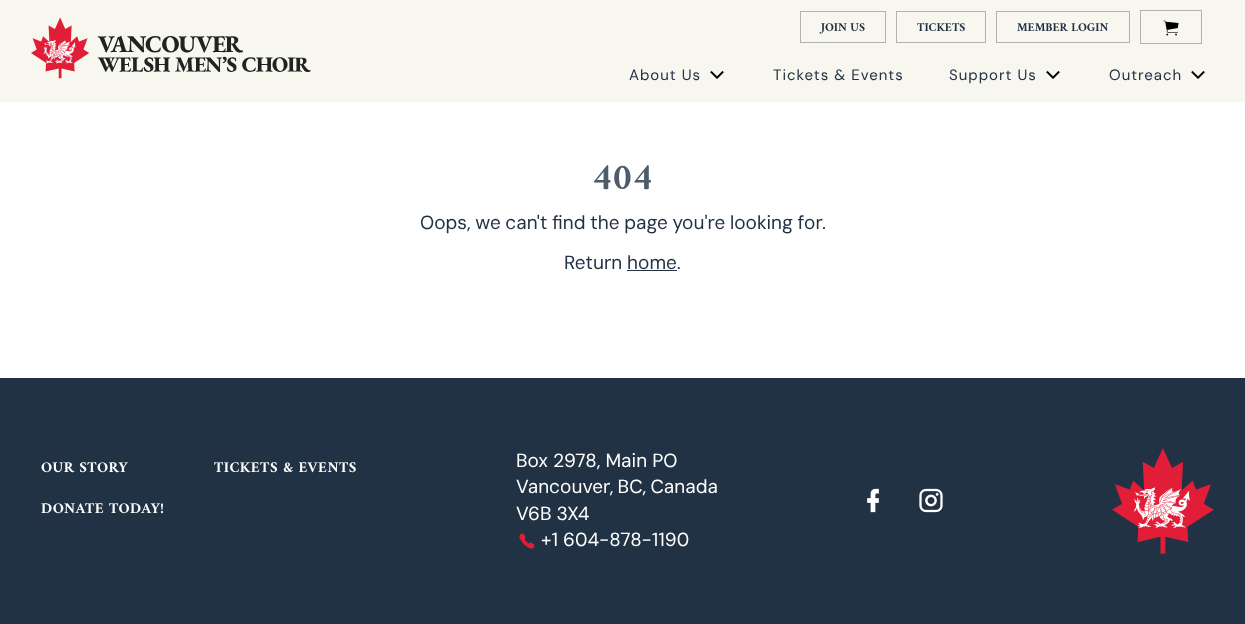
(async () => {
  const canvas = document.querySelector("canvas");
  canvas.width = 1245;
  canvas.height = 624;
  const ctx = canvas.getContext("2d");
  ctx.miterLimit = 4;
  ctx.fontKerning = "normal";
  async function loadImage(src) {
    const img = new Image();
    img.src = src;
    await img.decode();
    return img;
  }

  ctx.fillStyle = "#ffffff";
  ctx.fillRect(0, 0, 1245, 624);
  ctx.fillStyle = "#f7f7ef";
  ctx.fillRect(0, 0, 1245, 102);
  ctx.drawImage(await loadImage("img/1.png"), 31, 17, 280, 62);
  ctx.strokeStyle = "#b3b2ac";
  ctx.strokeRect(800.5, 11.5, 85, 31);
  ctx.strokeRect(896.5, 11.5, 89, 31);
  ctx.strokeRect(996.5, 11.5, 133, 31);
  ctx.strokeRect(1140.5, 10.5, 61, 33);
  ctx.drawImage(await loadImage("img/2.png"), 1163, 20, 16, 16);
  ctx.drawImage(await loadImage("img/3.png"), 710, 71, 14, 8);
  ctx.drawImage(await loadImage("img/3.png"), 1046, 71, 14, 8);
  ctx.drawImage(await loadImage("img/3.png"), 1191, 71, 14, 8);
  ctx.fillStyle = "#223244";
  ctx.fillRect(627, 270, 50, 1);
  ctx.fillStyle = "#213245";
  ctx.fillRect(0, 378, 1245, 246);
  ctx.drawImage(await loadImage("img/4.png"), 519, 533, 16, 16);
  ctx.drawImage(await loadImage("img/5.png"), 867, 488, 12, 25);
  ctx.drawImage(await loadImage("img/6.png"), 919, 488, 24, 25);
  ctx.drawImage(await loadImage("img/7.png"), 1112, 448, 102, 106);
  ctx.font = "bold 12px Amiri";
  ctx.fillStyle = "#223244";
  for (const [text, x, y] of [
    ["JOIN US", 821, 31],
    ["TICKETS", 917, 31],
    ["MEMBER LOGIN", 1017, 31],
  ]) {
    ctx.fillText(text, x, y);
  }
  ctx.letterSpacing = "1px";
  ctx.font = "15px 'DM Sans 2'";
  for (const [text, x, y] of [
    ["About Us", 629, 80],
    ["Tickets & Events", 773, 80],
    ["Support Us", 949, 80],
    ["Outreach", 1109, 80],
  ]) {
    ctx.fillText(text, x, y);
  }
  ctx.letterSpacing = "0px";
  ctx.font = "bold 38px Amiri";
  ctx.fillStyle = "#4d5b6a";
  ctx.fillText("404", 592, 189);
  ctx.wordSpacing = "-0.5px";
  ctx.font = "19px DM Sans";
  ctx.fillStyle = "#223244";
  ctx.fillText("Oops, we can't find the page you're looking for.", 420, 229);
  ctx.wordSpacing = "0px";
  ctx.fillText("Return", 564, 269);
  ctx.fillText("home.", 627, 269);
  ctx.letterSpacing = "0.5px";
  ctx.font = "bold 15px Amiri";
  ctx.fillStyle = "#ffffff";
  for (const [text, x, y] of [
    ["OUR STORY", 41, 472],
    ["TICKETS & EVENTS", 214, 472],
    ["DONATE TODAY!", 41, 513],
  ]) {
    ctx.fillText(text, x, y);
  }
  ctx.letterSpacing = "0px";
  ctx.font = "19px DM Sans";
  ctx.fillText("Box 2978, Main PO", 516, 467);
  ctx.wordSpacing = "-1px";
  ctx.fillText("Vancouver, BC, Canada", 516, 493);
  ctx.wordSpacing = "0px";
  ctx.fillText("V6B 3X4", 516, 520);
  ctx.fillText("+1 604-878-1190", 541, 546);
})();
